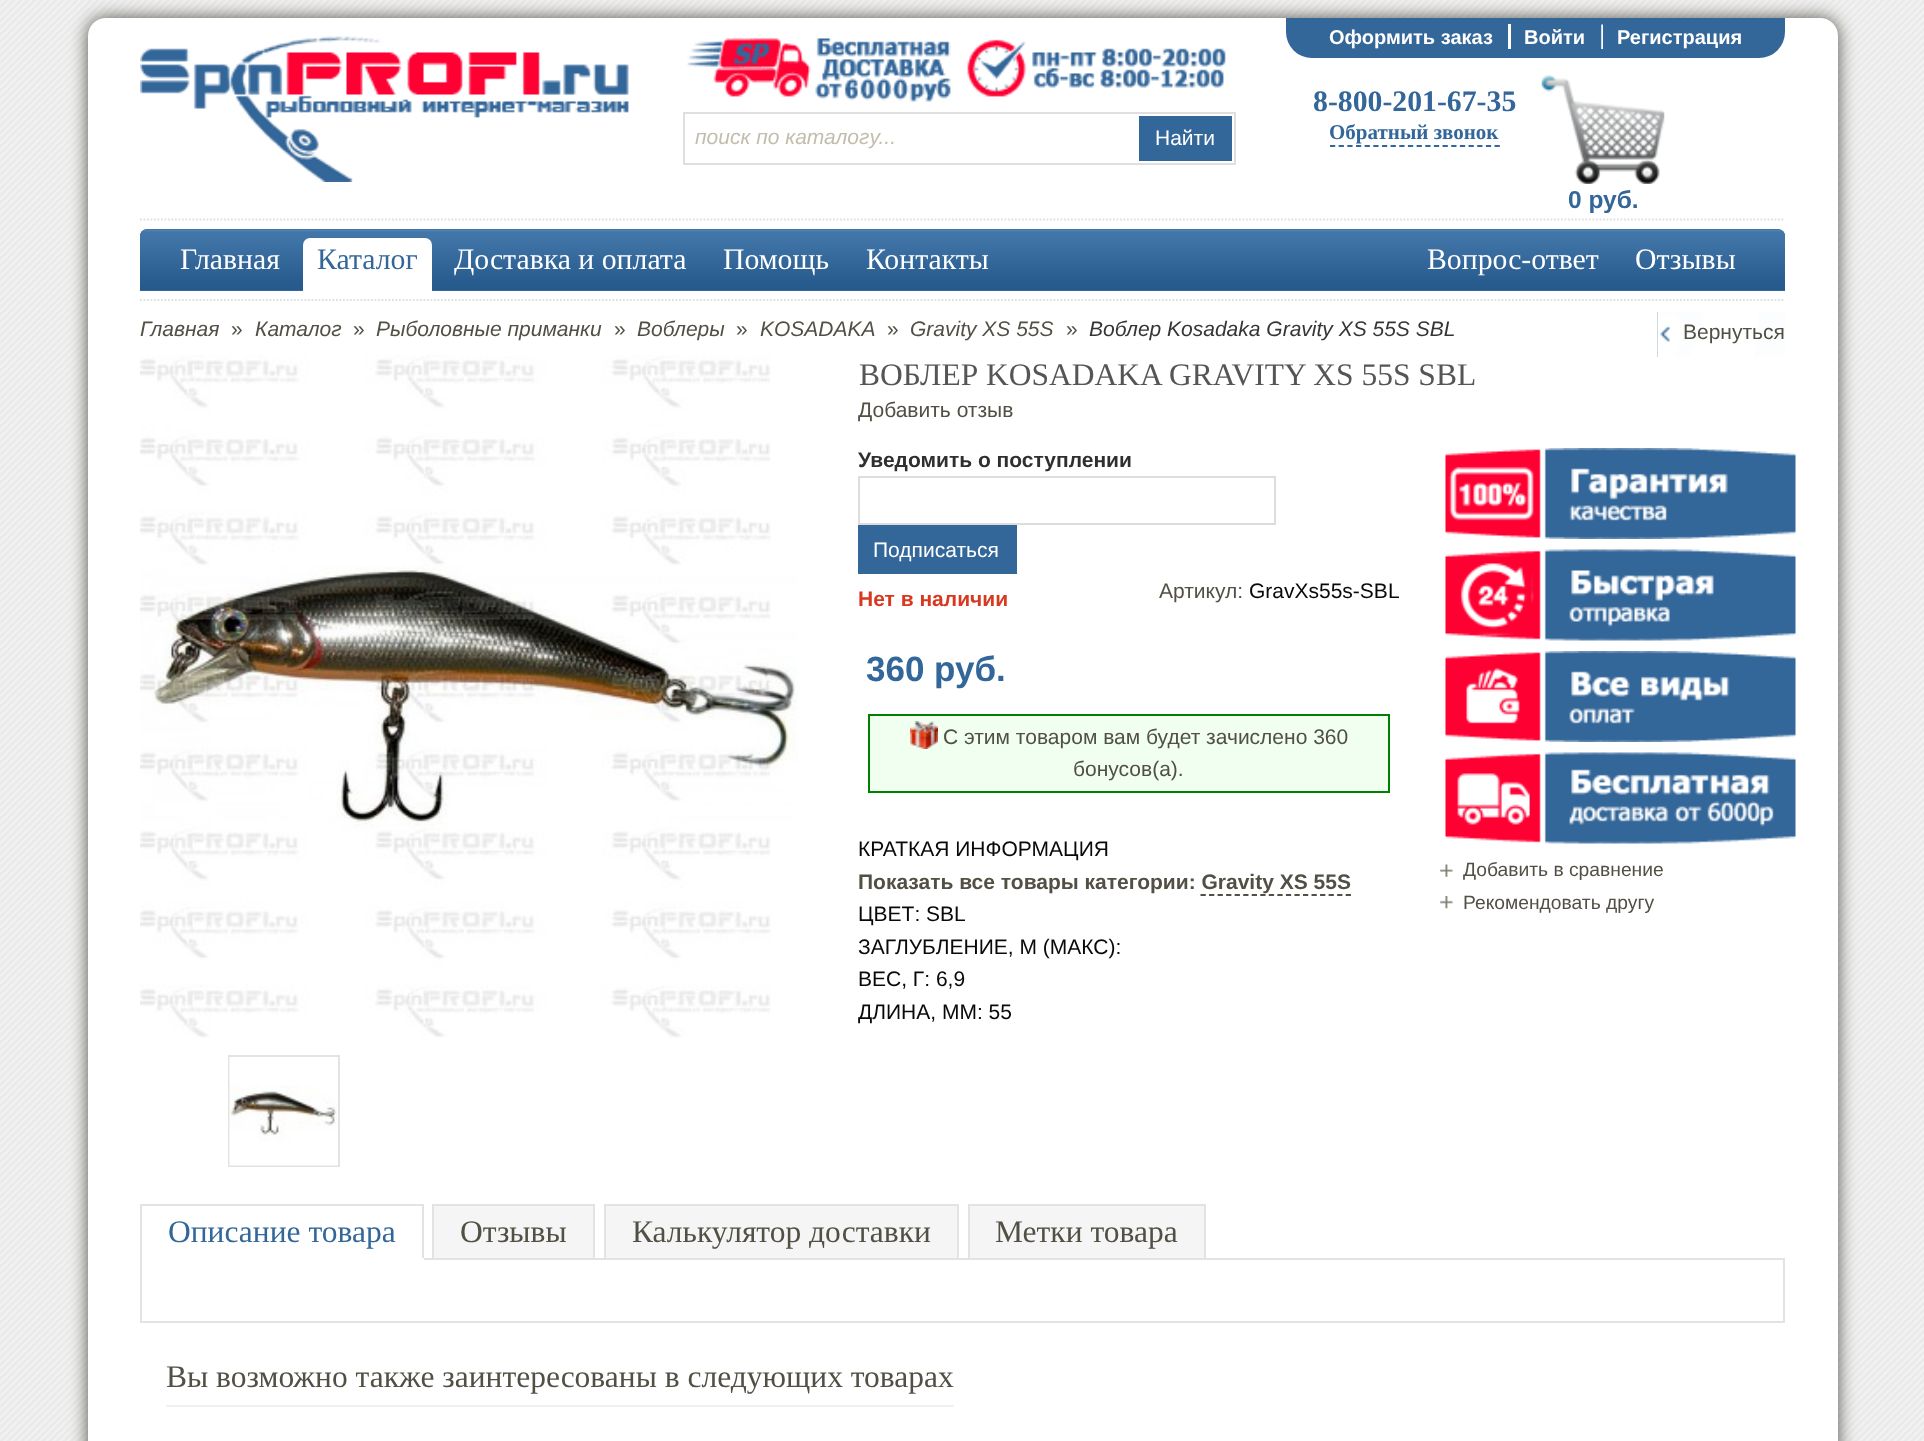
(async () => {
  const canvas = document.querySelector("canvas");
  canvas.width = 1924;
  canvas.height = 1441;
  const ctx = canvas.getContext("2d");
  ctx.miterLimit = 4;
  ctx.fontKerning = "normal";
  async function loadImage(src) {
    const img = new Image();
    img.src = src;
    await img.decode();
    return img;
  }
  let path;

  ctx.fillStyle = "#ffffff";
  ctx.fillRect(0, 0, 1924, 1441);
  ctx.drawImage(await loadImage("img/1.png"), 0, 0, 1924, 1441);
  ctx.fillStyle = "#524f45";
  ctx.filter = "blur(9px)";
  ctx.beginPath();
  ctx.roundRect(88, 18, 1750, 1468, 18);
  ctx.fill();
  ctx.filter = "none";
  ctx.fillStyle = "#ffffff";
  ctx.beginPath();
  ctx.roundRect(88, 18, 1750, 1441, 18);
  ctx.fill();
  path = new Path2D("M140 219.5H1785");
  ctx.strokeStyle = "#dfdfdf";
  ctx.lineWidth = 1.8;
  ctx.setLineDash([1.75, 1.75]);
  ctx.stroke(path);
  ctx.drawImage(await loadImage("img/2.png"), 140, 36, 489, 146);
  ctx.drawImage(await loadImage("img/3.png"), 687, 38, 539, 64);
  ctx.strokeStyle = "#dfdfdd";
  ctx.lineWidth = 2;
  ctx.setLineDash([]);
  ctx.strokeRect(684, 113, 551, 51);
  ctx.fillStyle = "#336699";
  ctx.fillRect(1139, 116, 93, 45);
  ctx.beginPath();
  ctx.roundRect(1286, 18, 499, 40, [0, 0, 26, 26]);
  ctx.fill();
  ctx.fillStyle = "#ffffff";
  ctx.fillRect(1508, 24, 3, 25);
  ctx.drawImage(await loadImage("img/4.png"), 1601, 24, 2, 25);
  path = new Path2D("M1330 146H1500");
  ctx.strokeStyle = "#336699";
  ctx.lineWidth = 1.8;
  ctx.setLineDash([5.25, 3.41]);
  ctx.stroke(path);
  ctx.drawImage(await loadImage("img/5.png"), 1541, 75, 124, 109);
  ctx.fillStyle = "#336699";
  ctx.beginPath();
  ctx.roundRect(140, 229, 1645, 62, [7, 7, 0, 0]);
  ctx.fill();
  ctx.drawImage(await loadImage("img/6.png"), 140, 229, 1645, 61);
  ctx.fillStyle = "#ffffff";
  ctx.beginPath();
  ctx.roundRect(303, 238, 129, 56, [7, 7, 0, 0]);
  ctx.fill();
  path = new Path2D("M140 300H1785");
  ctx.strokeStyle = "#dfdfdf";
  ctx.setLineDash([1.75, 1.75]);
  ctx.stroke(path);
  ctx.fillStyle = "#336699";
  ctx.fillRect(1657, 312, 128, 45);
  ctx.drawImage(await loadImage("img/7.png"), 1657, 312, 128, 45);
  ctx.drawImage(await loadImage("img/8.png"), 140, 355, 658, 683);
  ctx.strokeStyle = "#e3e3e3";
  ctx.lineWidth = 2;
  ctx.setLineDash([]);
  ctx.strokeRect(229, 1056, 110, 110);
  ctx.drawImage(await loadImage("img/9.png"), 229, 1057, 109, 109);
  ctx.strokeStyle = "#dddddd";
  ctx.strokeRect(859, 477, 416, 47);
  ctx.fillRect(858, 525, 159, 49);
  ctx.fillStyle = "#f0fff0";
  ctx.beginPath();
  ctx.rect(869, 715, 520, 77);
  ctx.fill();
  ctx.strokeStyle = "#008000";
  ctx.stroke();
  ctx.drawImage(await loadImage("img/10.png"), 910, 721, 28, 28);
  path = new Path2D("M1200.5 895H1351");
  ctx.strokeStyle = "#524f45";
  ctx.lineWidth = 1.8;
  ctx.setLineDash([5.25, 3.29]);
  ctx.stroke(path);
  ctx.drawImage(await loadImage("img/11.png"), 1445, 448, 351, 91);
  ctx.drawImage(await loadImage("img/12.png"), 1445, 549, 351, 92);
  ctx.drawImage(await loadImage("img/13.png"), 1445, 651, 351, 91);
  ctx.drawImage(await loadImage("img/14.png"), 1445, 752, 351, 92);
  ctx.drawImage(await loadImage("img/15.png"), 1440, 864, 13, 13);
  ctx.drawImage(await loadImage("img/16.png"), 1440, 896, 13, 13);
  ctx.fillStyle = "#e3e3e3";
  ctx.fillRect(140, 1204, 284, 2);
  ctx.strokeStyle = "#e3e3e3";
  ctx.lineWidth = 2;
  ctx.setLineDash([]);
  ctx.strokeRect(141, 1259, 1643, 63);
  for (const [x, y, w, h, color] of [
    [422, 1204, 2, 56, "#e3e3e3"],
    [140, 1258, 284, 2, "#ffffff"],
    [140, 1204, 2, 56, "#e3e3e3"],
  ]) {
    ctx.fillStyle = color;
    ctx.fillRect(x, y, w, h);
  }
  ctx.fillStyle = "#f5f5f5";
  ctx.beginPath();
  ctx.rect(433, 1205, 161, 54);
  ctx.fill();
  ctx.stroke();
  ctx.beginPath();
  ctx.rect(605, 1205, 353, 54);
  ctx.fill();
  ctx.stroke();
  ctx.beginPath();
  ctx.rect(969, 1205, 236, 54);
  ctx.fill();
  ctx.stroke();
  ctx.fillStyle = "#f0f0ef";
  ctx.fillRect(166, 1405, 788, 2);
  ctx.font = "italic 21px Liberation Sans";
  ctx.fillStyle = "#c2bdad";
  ctx.fillText("поиск по каталогу...", 695, 144);
  ctx.font = "21px Liberation Sans";
  ctx.fillStyle = "#ffffff";
  ctx.fillText("Найти", 1155, 145);
  ctx.font = "bold 20px Liberation Sans";
  for (const [text, x, y] of [
    ["Оформить заказ", 1329, 44],
    ["Войти", 1524, 44],
    ["Регистрация", 1617, 44],
  ]) {
    ctx.fillText(text, x, y);
  }
  ctx.font = "bold 29.75px Liberation Serif";
  ctx.fillStyle = "#336699";
  ctx.fillText("8-800-201-67-35", 1313, 111);
  ctx.font = "bold 21px Liberation Serif";
  ctx.fillText("Обратный звонок", 1329, 139);
  ctx.font = "bold 24.5px Liberation Sans";
  ctx.fillText("0 руб.", 1568, 208);
  ctx.font = "29.75px Liberation Serif";
  ctx.fillStyle = "#ffffff";
  ctx.fillText("Главная", 180, 269);
  ctx.fillStyle = "#336699";
  ctx.fillText("Каталог", 317, 269);
  ctx.fillStyle = "#ffffff";
  for (const [text, x, y] of [
    ["Доставка и оплата", 454, 269],
    ["Помощь", 723, 269],
    ["Контакты", 866, 269],
    ["Вопрос-ответ", 1427, 269],
    ["Отзывы", 1635, 269],
  ]) {
    ctx.fillText(text, x, y);
  }
  ctx.font = "italic 21px Liberation Sans";
  ctx.fillStyle = "#524f45";
  ctx.fillText("Главная", 140, 336);
  ctx.font = "21px Liberation Sans";
  ctx.fillText("»", 231, 336);
  ctx.font = "italic 21px Liberation Sans";
  ctx.fillText("Каталог", 255, 336);
  ctx.font = "21px Liberation Sans";
  ctx.fillText("»", 353, 336);
  ctx.font = "italic 21px Liberation Sans";
  ctx.fillText("Рыболовные приманки", 376, 336);
  ctx.font = "21px Liberation Sans";
  ctx.fillText("»", 614, 336);
  ctx.font = "italic 21px Liberation Sans";
  ctx.fillText("Воблеры", 637, 336);
  ctx.font = "21px Liberation Sans";
  ctx.fillText("»", 736, 336);
  ctx.font = "italic 21px Liberation Sans";
  ctx.fillText("KOSADAKA", 760, 336);
  ctx.font = "21px Liberation Sans";
  ctx.fillText("»", 887, 336);
  ctx.font = "italic 21px Liberation Sans";
  ctx.fillText("Gravity XS 55S", 910, 336);
  ctx.font = "21px Liberation Sans";
  ctx.fillText("»", 1066, 336);
  ctx.font = "italic 21px Liberation Sans";
  ctx.fillStyle = "#353535";
  ctx.fillText("Воблер Kosadaka Gravity XS 55S SBL", 1089, 336);
  ctx.font = "21px Liberation Sans";
  ctx.fillStyle = "#524f45";
  ctx.fillText("Вернуться", 1683, 339);
  ctx.font = "31.5px Liberation Serif";
  ctx.fillStyle = "#555555";
  ctx.fillText("ВОБЛЕР KOSADAKA GRAVITY XS 55S SBL", 859, 385);
  ctx.font = "21px Liberation Sans";
  ctx.fillStyle = "#524f45";
  ctx.fillText("Добавить отзыв", 858, 417);
  ctx.font = "bold 21px Liberation Sans";
  ctx.fillStyle = "#2f2f2f";
  ctx.fillText("Уведомить о поступлении", 858, 467);
  ctx.font = "21px Liberation Sans";
  ctx.fillStyle = "#ffffff";
  ctx.fillText("Подписаться", 873, 557);
  ctx.font = "bold 21px Liberation Sans";
  ctx.fillStyle = "#d83820";
  ctx.fillText("Нет в наличии", 858, 606);
  ctx.font = "21px Liberation Sans";
  ctx.fillStyle = "#524f45";
  ctx.fillText("Артикул:", 1159, 598);
  ctx.fillStyle = "#090909";
  ctx.fillText("GravXs55s-SBL", 1249, 598);
  ctx.font = "bold 35px Liberation Sans";
  ctx.fillStyle = "#336699";
  ctx.fillText("360 руб.", 866, 681);
  ctx.font = "21px Liberation Sans";
  ctx.fillStyle = "#524f45";
  ctx.fillText("С этим товаром вам будет зачислено 360", 943, 744);
  ctx.fillText("бонусов(а).", 1073, 776);
  ctx.fillStyle = "#090909";
  ctx.fillText("КРАТКАЯ ИНФОРМАЦИЯ", 858, 856);
  ctx.font = "bold 21px Liberation Sans";
  ctx.fillStyle = "#524f45";
  ctx.fillText("Показать все товары категории: Gravity XS 55S", 858, 889);
  ctx.font = "21px Liberation Sans";
  ctx.fillStyle = "#090909";
  for (const [text, x, y] of [
    ["ЦВЕТ: SBL", 858, 921],
    ["ЗАГЛУБЛЕНИЕ, М (МАКС):", 858, 954],
    ["ВЕС, Г: 6,9", 858, 986],
    ["ДЛИНА, ММ: 55", 858, 1019],
  ]) {
    ctx.fillText(text, x, y);
  }
  ctx.font = "19.25px Liberation Sans";
  ctx.fillStyle = "#524f45";
  ctx.fillText("Добавить в сравнение", 1463, 876);
  ctx.fillText("Рекомендовать другу", 1463, 909);
  ctx.font = "31.5px Liberation Serif";
  ctx.fillStyle = "#336699";
  ctx.fillText("Описание товара", 168, 1242);
  ctx.fillStyle = "#524f45";
  for (const [text, x, y] of [
    ["Отзывы", 460, 1242],
    ["Калькулятор доставки", 632, 1242],
    ["Метки товара", 995, 1242],
    ["Вы возможно также заинтересованы в следующих товарах", 166, 1387],
  ]) {
    ctx.fillText(text, x, y);
  }
})();
